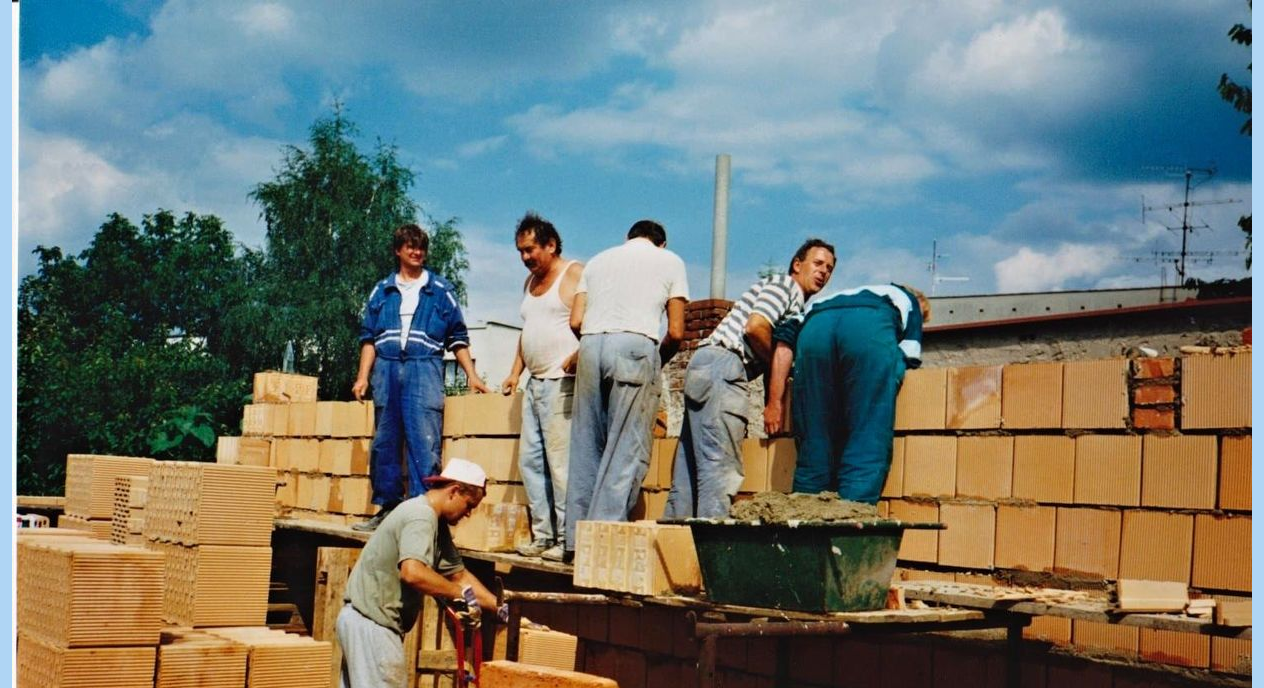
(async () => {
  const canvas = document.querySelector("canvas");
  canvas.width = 1264;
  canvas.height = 688;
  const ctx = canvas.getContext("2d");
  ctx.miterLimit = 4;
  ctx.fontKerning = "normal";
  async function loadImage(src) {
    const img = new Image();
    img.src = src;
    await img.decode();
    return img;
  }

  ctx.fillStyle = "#afd5f4";
  ctx.fillRect(0, 0, 1264, 688);
  ctx.drawImage(await loadImage("img/1.png"), 12, 0, 1240, 688);
})();
